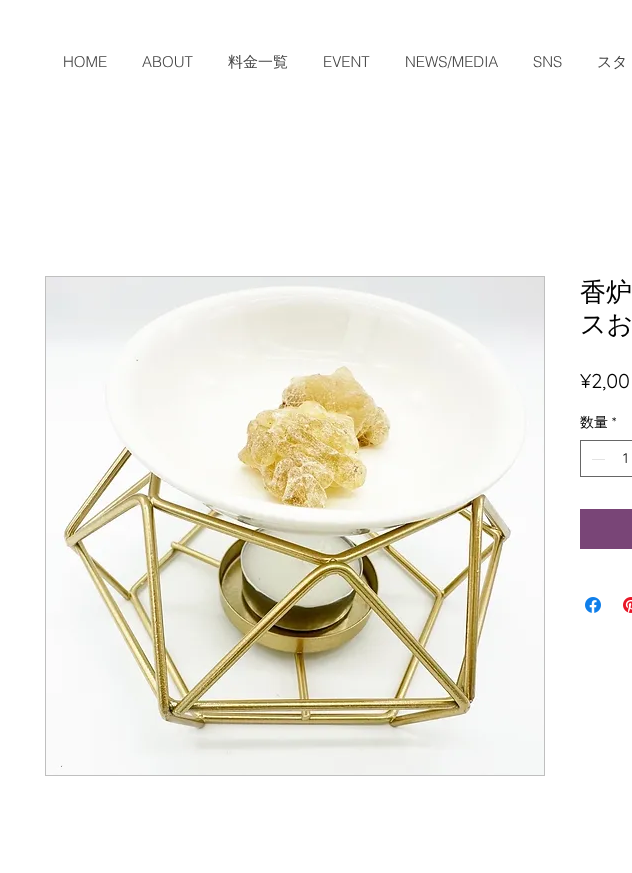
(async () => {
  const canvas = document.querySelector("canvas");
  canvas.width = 632;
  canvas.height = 873;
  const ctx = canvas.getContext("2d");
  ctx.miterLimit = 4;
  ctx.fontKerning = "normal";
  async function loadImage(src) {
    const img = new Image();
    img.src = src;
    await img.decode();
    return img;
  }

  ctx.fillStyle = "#ffffff";
  ctx.fillRect(0, 0, 632, 873);
  ctx.strokeStyle = "#bfbfbf";
  ctx.strokeRect(45.5, 276.5, 499, 499);
  ctx.drawImage(await loadImage("img/1.png"), 46, 277, 498, 498);
  ctx.strokeStyle = "#666666";
  ctx.strokeRect(580.5, 440.5, 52, 36);
  ctx.fillStyle = "#e3e3e3";
  ctx.fillRect(592, 459, 13, 1);
  ctx.fillStyle = "#794577";
  ctx.fillRect(580, 509, 52, 40);
  ctx.drawImage(await loadImage("img/2.png"), 585, 597, 16, 16);
  ctx.drawImage(await loadImage("img/3.png"), 623, 597, 9, 16);
  ctx.font = "300 15px helvetica";
  ctx.fillStyle = "#444444";
  ctx.fillText("HOME", 63, 67);
  ctx.fillText("ABOUT", 142, 67);
  ctx.font = "500 15px WenQuanYi Zen Hei";
  ctx.fillText("料金一覧", 228, 67);
  ctx.font = "300 15px helvetica";
  for (const [text, x, y] of [
    ["EVENT", 323, 67],
    ["NEWS/MEDIA", 405, 67],
    ["SNS", 533, 67],
  ]) {
    ctx.fillText(text, x, y);
  }
  ctx.font = "500 15px WenQuanYi Zen Hei";
  ctx.fillText("スタ", 597, 67);
  ctx.font = "500 26px WenQuanYi Zen Hei";
  ctx.fillStyle = "#000000";
  ctx.fillText("香炉", 580, 301);
  ctx.fillText("スお", 580, 333);
  ctx.font = "20px Quicksand";
  ctx.fillText("¥2,00", 580, 388);
  ctx.font = "500 14px WenQuanYi Zen Hei";
  ctx.fillText("数量", 580, 427);
  ctx.font = "14px Quicksand";
  ctx.fillText("*", 612, 427);
  ctx.fillText("1", 623, 463);
})();
